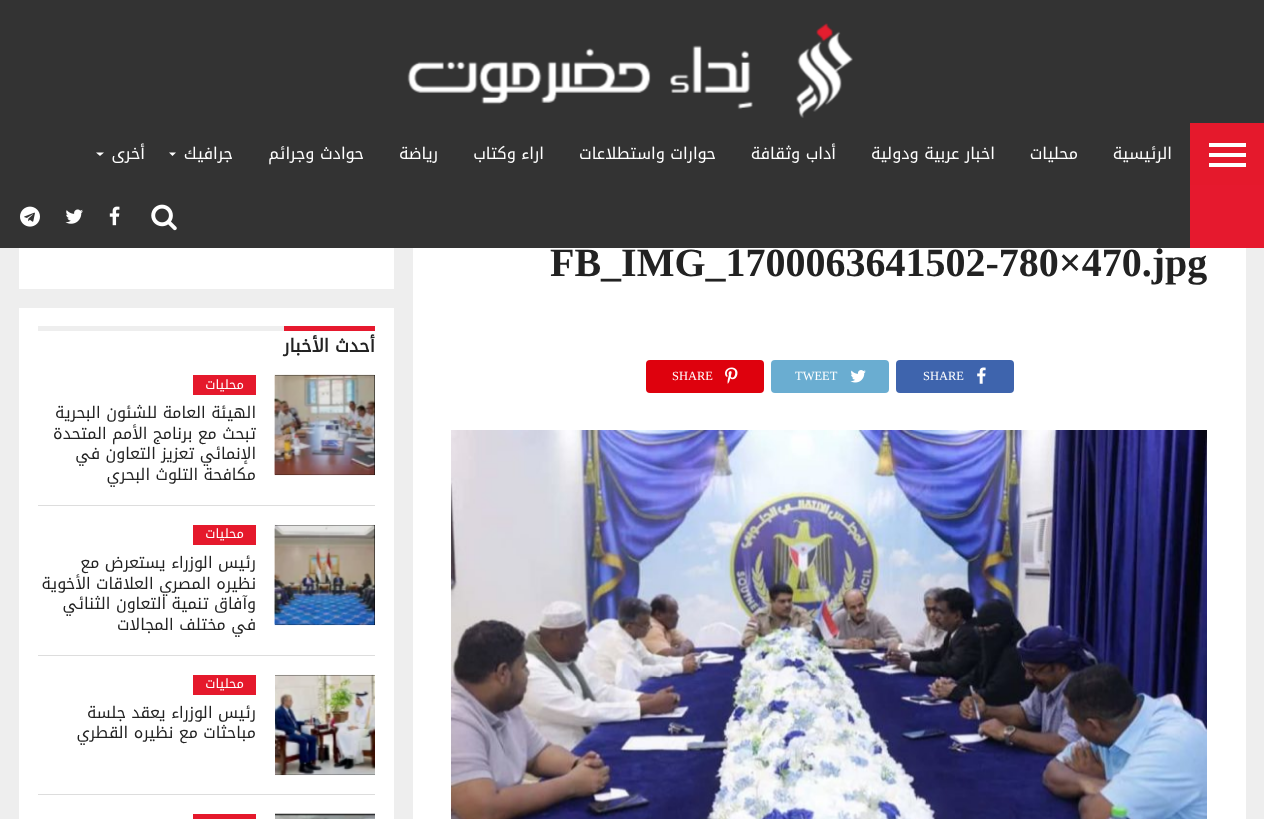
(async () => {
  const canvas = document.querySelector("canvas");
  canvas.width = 1264;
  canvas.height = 819;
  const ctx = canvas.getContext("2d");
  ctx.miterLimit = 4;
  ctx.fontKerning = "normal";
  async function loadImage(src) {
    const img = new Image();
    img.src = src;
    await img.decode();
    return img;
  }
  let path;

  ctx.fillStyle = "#eeeeee";
  ctx.fillRect(0, 0, 1264, 819);
  ctx.fillStyle = "#333333";
  ctx.fillRect(0, 0, 1264, 123);
  ctx.drawImage(await loadImage("img/1.png"), 407, 23, 446, 95);
  for (const [x, y, w, h, color] of [
    [1190, 185, 74, 63, "#e6192e"],
    [1190, 123, 74, 62, "#e5192c"],
    [1209, 143, 37, 4, "#ffffff"],
    [1209, 153, 37, 4, "#ffffff"],
    [1209, 163, 37, 4, "#ffffff"],
    [0, 123, 1190, 125, "#333333"],
  ]) {
    ctx.fillStyle = color;
    ctx.fillRect(x, y, w, h);
  }
  ctx.fillStyle = "#ffffff";
  path = new Path2D("M169 152.5H176L172.5 156Z");
  ctx.fill(path);
  path = new Path2D("M96 152.5H104L100 156Z");
  ctx.fill(path);
  ctx.drawImage(await loadImage("img/2.png"), 151, 204, 26, 27);
  ctx.drawImage(await loadImage("img/3.png"), 109, 206, 11, 20);
  ctx.drawImage(await loadImage("img/4.png"), 65, 209, 18, 15);
  ctx.drawImage(await loadImage("img/5.png"), 20, 206, 20, 21);
  ctx.fillRect(413, 248, 833, 571);
  ctx.fillStyle = "#3e64ad";
  ctx.beginPath();
  ctx.roundRect(896, 360, 118, 33, 4);
  ctx.fill();
  ctx.drawImage(await loadImage("img/6.png"), 977, 367, 9, 17);
  ctx.fillStyle = "#6aadd1";
  ctx.beginPath();
  ctx.roundRect(771, 360, 118, 33, 4);
  ctx.fill();
  ctx.drawImage(await loadImage("img/7.png"), 850, 370, 16, 13);
  ctx.fillStyle = "#de010d";
  ctx.beginPath();
  ctx.roundRect(646, 360, 118, 33, 4);
  ctx.fill();
  ctx.drawImage(await loadImage("img/8.png"), 725, 367, 13, 17);
  ctx.drawImage(await loadImage("img/9.png"), 451, 430, 756, 389);
  for (const [x, y, w, h, color] of [
    [19, 248, 375, 41, "#ffffff"],
    [19, 308, 375, 511, "#ffffff"],
    [38, 326, 246, 5, "#eeeeee"],
    [284, 326, 91, 5, "#e6192e"],
    [275, 375, 100, 100, "#000000"],
  ]) {
    ctx.fillStyle = color;
    ctx.fillRect(x, y, w, h);
  }
  ctx.drawImage(await loadImage("img/10.png"), 274, 374, 101, 102);
  for (const [x, y, w, h, color] of [
    [193, 375, 63, 20, "#e5192c"],
    [38, 505, 337, 1, "#dddddd"],
    [275, 525, 100, 100, "#000000"],
  ]) {
    ctx.fillStyle = color;
    ctx.fillRect(x, y, w, h);
  }
  ctx.drawImage(await loadImage("img/11.png"), 274, 524, 101, 102);
  for (const [x, y, w, h, color] of [
    [193, 525, 63, 20, "#e5192c"],
    [38, 655, 337, 1, "#dddddd"],
    [275, 675, 100, 100, "#000000"],
  ]) {
    ctx.fillStyle = color;
    ctx.fillRect(x, y, w, h);
  }
  ctx.drawImage(await loadImage("img/12.png"), 275, 674, 100, 102);
  ctx.fillStyle = "#e5192c";
  ctx.fillRect(193, 675, 63, 20);
  ctx.fillStyle = "#dddddd";
  ctx.fillRect(38, 794, 337, 1);
  ctx.drawImage(await loadImage("img/13.png"), 275, 813, 100, 6);
  ctx.fillStyle = "#e5192c";
  ctx.fillRect(193, 814, 63, 5);
  ctx.direction = "rtl";
  ctx.font = "16.25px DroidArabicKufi";
  ctx.fillStyle = "#ffffff";
  for (const [text, x, y] of [
    ["الرئيسية", 1172, 159],
    ["محليات", 1078, 159],
    ["اخبار عربية ودولية", 995, 159],
    ["أداب وثقافة", 836, 159],
    ["حوارات واستطلاعات", 716, 159],
    ["اراء وكتاب", 544, 159],
    ["رياضة", 438, 159],
    ["حوادث وجرائم", 364, 159],
    ["جرافيك", 233, 159],
    ["أخرى", 145, 159],
  ]) {
    ctx.fillText(text, x, y);
  }
  ctx.direction = "ltr";
  ctx.font = "bold 40px Liberation Serif";
  ctx.fillStyle = "#222222";
  ctx.fillText("FB_IMG_1700063641502-780×470.jpg", 550, 276);
  ctx.font = "12.5px Liberation Serif";
  ctx.fillStyle = "#ffffff";
  for (const [text, x, y] of [
    ["SHARE", 923, 380],
    ["TWEET", 795, 380],
    ["SHARE", 672, 380],
  ]) {
    ctx.fillText(text, x, y);
  }
  ctx.direction = "rtl";
  ctx.font = "bold 18px DroidArabicKufi";
  ctx.fillStyle = "#222222";
  ctx.fillText("أحدث الأخبار", 375, 352);
  ctx.font = "13px DroidArabicKufi";
  ctx.fillStyle = "#ffffff";
  ctx.fillText("محليات", 244, 389);
  ctx.font = "16px DroidArabicKufi";
  ctx.fillStyle = "#222222";
  for (const [text, x, y] of [
    ["الهيئة العامة للشئون البحرية", 256, 418],
    ["تبحث مع برنامج الأمم المتحدة", 256, 439],
    ["الإنمائي تعزيز التعاون في", 256, 459],
    ["مكافحة التلوث البحري", 256, 480],
  ]) {
    ctx.fillText(text, x, y);
  }
  ctx.font = "13px DroidArabicKufi";
  ctx.fillStyle = "#ffffff";
  ctx.fillText("محليات", 244, 538);
  ctx.font = "16px DroidArabicKufi";
  ctx.fillStyle = "#222222";
  for (const [text, x, y] of [
    ["رئيس الوزراء يستعرض مع", 256, 568],
    ["نظيره المصري العلاقات الأخوية", 256, 589],
    ["وآفاق تنمية التعاون الثنائي", 256, 609],
    ["في مختلف المجالات", 256, 630],
  ]) {
    ctx.fillText(text, x, y);
  }
  ctx.font = "13px DroidArabicKufi";
  ctx.fillStyle = "#ffffff";
  ctx.fillText("محليات", 244, 688);
  ctx.font = "16px DroidArabicKufi";
  ctx.fillStyle = "#222222";
  ctx.fillText("رئيس الوزراء يعقد جلسة", 256, 718);
  ctx.fillText("مباحثات مع نظيره القطري", 256, 738);
})();
